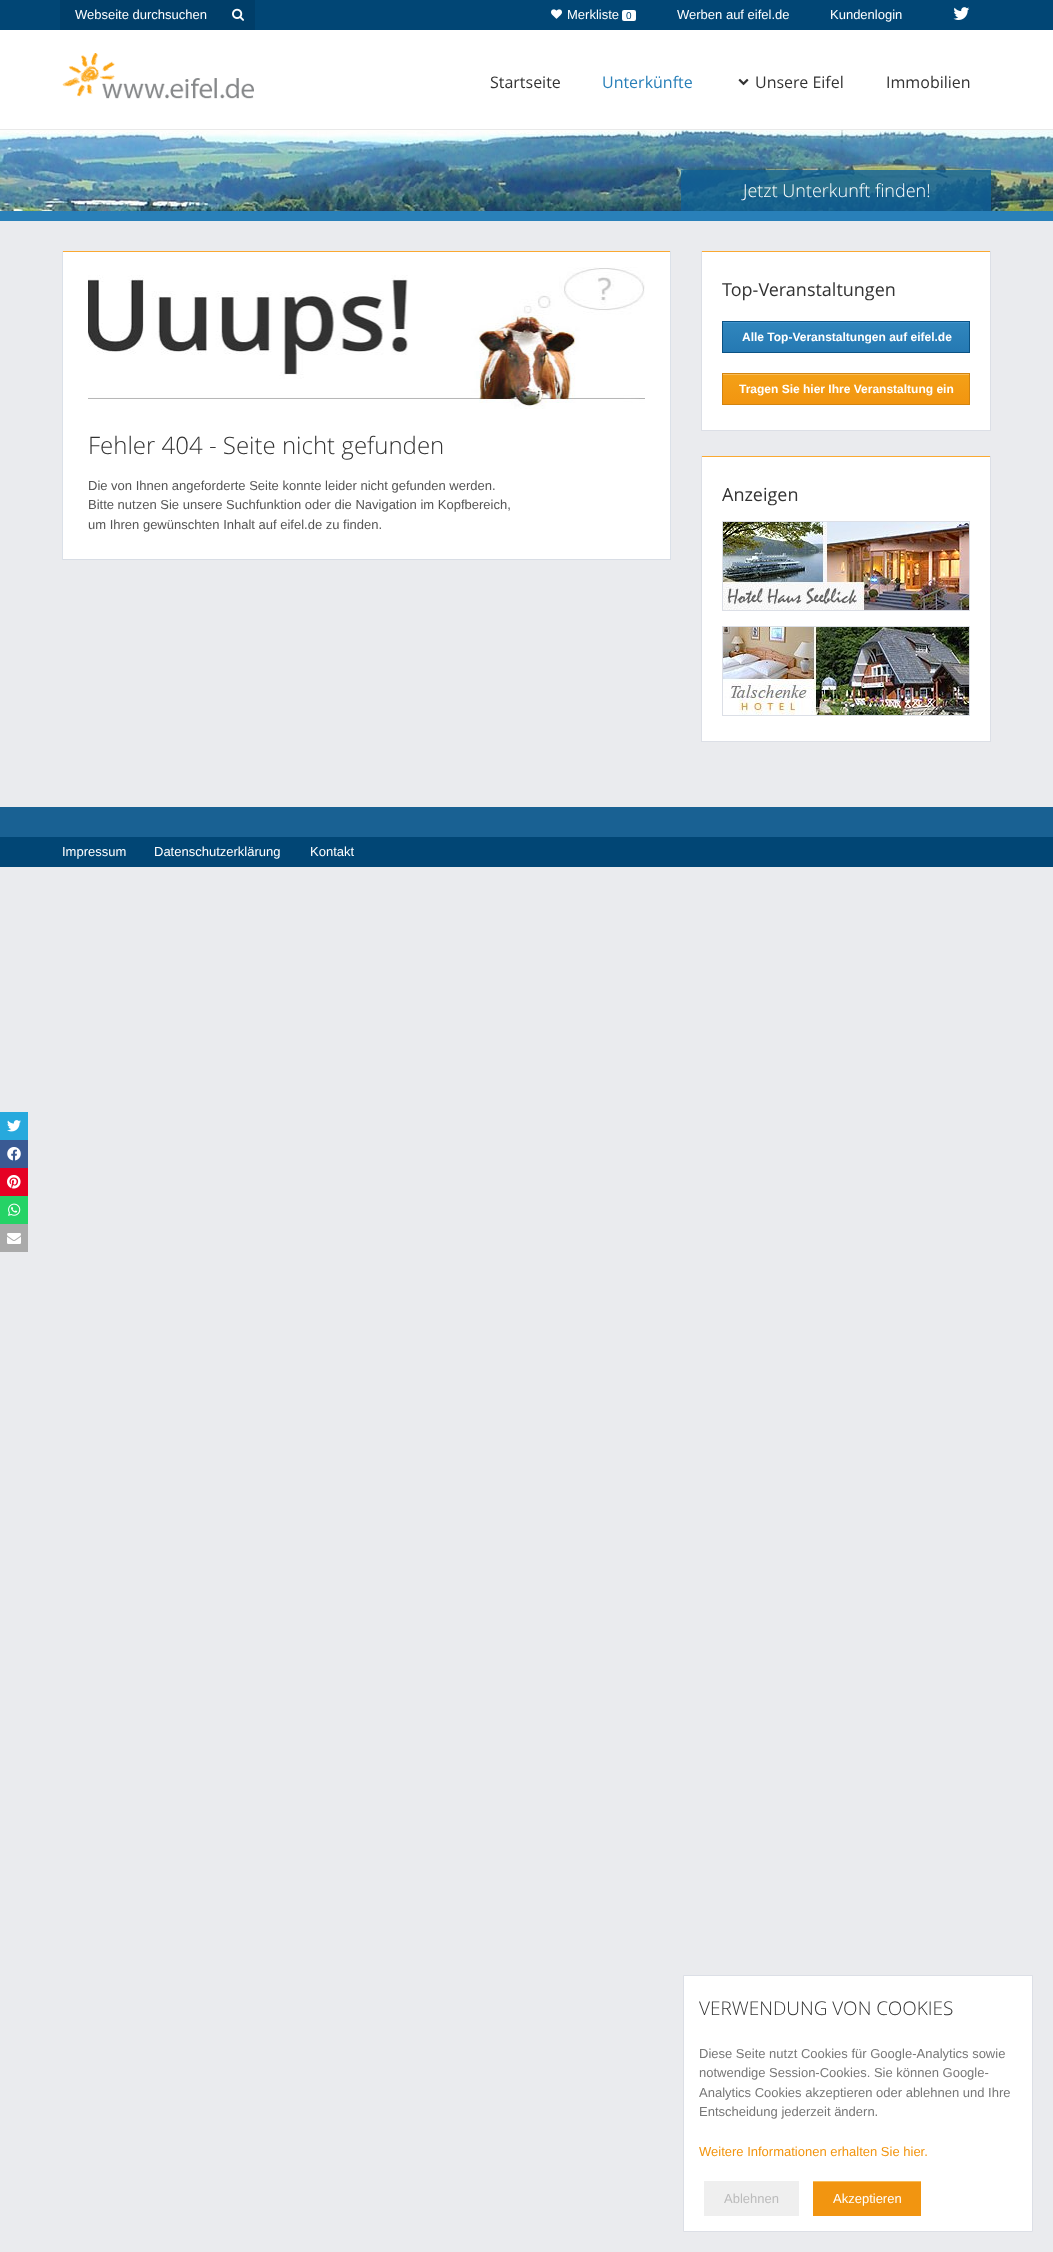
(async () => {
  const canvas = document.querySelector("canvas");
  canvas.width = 1053;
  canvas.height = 2252;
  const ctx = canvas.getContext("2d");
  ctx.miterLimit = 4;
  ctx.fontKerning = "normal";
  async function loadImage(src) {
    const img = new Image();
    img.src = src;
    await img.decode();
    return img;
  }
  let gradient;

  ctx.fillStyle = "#eaebee";
  ctx.fillRect(0, 0, 1053, 2252);
  ctx.fillStyle = "#014675";
  ctx.fillRect(0, 0, 1053, 30);
  ctx.fillStyle = "#003e69";
  ctx.fillRect(60, 0, 195, 30);
  ctx.drawImage(await loadImage("img/1.png"), 232, 8, 12, 13);
  ctx.drawImage(await loadImage("img/2.png"), 551, 9, 11, 10);
  ctx.fillStyle = "#ffffff";
  ctx.beginPath();
  ctx.roundRect(622, 10, 14, 11, 2);
  ctx.fill();
  ctx.drawImage(await loadImage("img/3.png"), 953, 7, 17, 13);
  ctx.fillRect(0, 30, 1053, 99);
  ctx.fillStyle = "#e9e9e9";
  ctx.fillRect(0, 129, 1053, 1);
  ctx.drawImage(await loadImage("img/4.png"), 62, 53, 192, 46);
  ctx.drawImage(await loadImage("img/5.png"), 738, 78, 11, 8);
  ctx.fillStyle = "#2980b9";
  ctx.fillRect(0, 211, 1053, 10);
  ctx.drawImage(await loadImage("img/6.png"), 0, 130, 1053, 81);
  for (const [x, y, w, h, color] of [
    [681, 170, 310, 41, "rgba(15, 98, 151, 0.8)"],
    [63, 252, 607, 307, "#ffffff"],
    [62, 251, 609, 1, "#faa932"],
    [670, 251, 1, 309, "#dbe1e9"],
    [62, 559, 609, 1, "#d8dde5"],
    [62, 251, 1, 309, "#dbe1e9"],
  ]) {
    ctx.fillStyle = color;
    ctx.fillRect(x, y, w, h);
  }
  ctx.drawImage(await loadImage("img/7.png"), 88, 267, 557, 142);
  for (const [x, y, w, h, color] of [
    [702, 252, 288, 178, "#ffffff"],
    [701, 251, 290, 1, "#faa932"],
    [990, 251, 1, 180, "#dcdfe6"],
    [701, 430, 290, 1, "#dcdfe6"],
    [701, 251, 1, 180, "#dcdfe6"],
  ]) {
    ctx.fillStyle = color;
    ctx.fillRect(x, y, w, h);
  }
  gradient = ctx.createLinearGradient(846, 322, 846, 352);
  gradient.addColorStop(0, "#3086bd");
  gradient.addColorStop(1, "#2579b3");
  ctx.fillStyle = gradient;
  ctx.fillRect(723, 323, 246, 29);
  ctx.fillStyle = "#3d92cd";
  ctx.fillRect(723, 322, 246, 1);
  ctx.strokeStyle = "#0a5284";
  ctx.strokeRect(722.5, 321.5, 247, 31);
  gradient = ctx.createLinearGradient(846, 374, 846, 404);
  gradient.addColorStop(0, "#f4a117");
  gradient.addColorStop(1, "#f29510");
  ctx.fillStyle = gradient;
  ctx.fillRect(723, 375, 246, 29);
  ctx.fillStyle = "#f7bb58";
  ctx.fillRect(723, 374, 246, 1);
  ctx.strokeStyle = "#d3840f";
  ctx.strokeRect(722.5, 373.5, 247, 31);
  for (const [x, y, w, h, color] of [
    [702, 457, 288, 284, "#ffffff"],
    [701, 456, 290, 1, "#faa932"],
    [990, 456, 1, 286, "#dcdfe6"],
    [701, 741, 290, 1, "#dcdfe6"],
    [701, 456, 1, 286, "#dcdfe6"],
  ]) {
    ctx.fillStyle = color;
    ctx.fillRect(x, y, w, h);
  }
  ctx.strokeStyle = "#dcdfe6";
  ctx.strokeRect(722.5, 521.5, 247, 89);
  ctx.drawImage(await loadImage("img/8.png"), 723, 522, 246, 88);
  ctx.strokeRect(722.5, 626.5, 247, 89);
  ctx.drawImage(await loadImage("img/9.png"), 723, 627, 246, 88);
  ctx.fillStyle = "#27a9dd";
  ctx.fillRect(0, 1112, 28, 28);
  ctx.drawImage(await loadImage("img/10.png"), 7, 1120, 14, 12);
  ctx.fillStyle = "#3a5a93";
  ctx.fillRect(0, 1140, 28, 28);
  ctx.drawImage(await loadImage("img/11.png"), 7, 1147, 14, 14);
  ctx.fillStyle = "#e60023";
  ctx.fillRect(0, 1168, 28, 28);
  ctx.drawImage(await loadImage("img/12.png"), 7, 1175, 14, 14);
  ctx.fillStyle = "#25d366";
  ctx.fillRect(0, 1196, 28, 28);
  ctx.drawImage(await loadImage("img/13.png"), 8, 1203, 13, 13);
  ctx.fillStyle = "#aaaaaa";
  ctx.fillRect(0, 1224, 28, 28);
  ctx.drawImage(await loadImage("img/14.png"), 7, 1233, 14, 11);
  ctx.fillStyle = "#196193";
  ctx.fillRect(0, 807, 1053, 30);
  ctx.fillStyle = "#014675";
  ctx.fillRect(0, 837, 1053, 30);
  ctx.fillStyle = "#ffffff";
  ctx.beginPath();
  ctx.rect(683.5, 1975.5, 349, 256);
  ctx.fill();
  ctx.stroke();
  for (const [x, y, w, h, color] of [
    [704, 2181, 95, 35, "#efefef"],
    [813, 2182, 108, 34, "#f29510"],
    [813, 2181, 108, 1, "#f7bb58"],
  ]) {
    ctx.fillStyle = color;
    ctx.fillRect(x, y, w, h);
  }
  ctx.font = "13px Liberation Sans";
  ctx.fillStyle = "#ffffff";
  ctx.fillText("Webseite durchsuchen", 75, 19);
  ctx.fillText("Merkliste", 567, 19);
  ctx.font = "10px Liberation Sans";
  ctx.fillStyle = "#014675";
  ctx.fillText("0", 626, 19);
  ctx.font = "13px Liberation Sans";
  ctx.fillStyle = "#ffffff";
  ctx.fillText("Werben auf eifel.de", 677, 19);
  ctx.fillText("Kundenlogin", 830, 19);
  ctx.font = "16px Open Sans";
  ctx.fillStyle = "#333333";
  ctx.fillText("Startseite", 490, 88);
  ctx.fillStyle = "#287fb8";
  ctx.fillText("Unterkünfte", 602, 88);
  ctx.fillStyle = "#333333";
  ctx.fillText("Unsere Eifel", 755, 88);
  ctx.fillText("Immobilien", 886, 88);
  ctx.font = "300 18px Open Sans";
  ctx.fillStyle = "#ffffff";
  ctx.fillText("Jetzt Unterkunft finden!", 743, 197);
  ctx.font = "300 24px Open Sans";
  ctx.fillStyle = "#333333";
  ctx.fillText("Fehler 404 - Seite nicht gefunden", 88, 454);
  ctx.font = "13px Liberation Sans";
  ctx.fillStyle = "#555555";
  for (const [text, x, y] of [
    ["Die von Ihnen angeforderte Seite konnte leider nicht gefunden werden.", 88, 490],
    ["Bitte nutzen Sie unsere Suchfunktion oder die Navigation im Kopfbereich,", 88, 509],
    ["um Ihren gewünschten Inhalt auf eifel.de zu finden.", 88, 529],
  ]) {
    ctx.fillText(text, x, y);
  }
  ctx.font = "18px Open Sans";
  ctx.fillStyle = "#333333";
  ctx.fillText("Top-Veranstaltungen", 722, 296);
  ctx.font = "bold 12px Liberation Sans";
  ctx.fillStyle = "#ffffff";
  ctx.fillText("Alle Top-Veranstaltungen auf eifel.de", 742, 341);
  ctx.fillText("Tragen Sie hier Ihre Veranstaltung ein", 739, 393);
  ctx.font = "18px Open Sans";
  ctx.fillStyle = "#333333";
  ctx.fillText("Anzeigen", 722, 501);
  ctx.font = "13px Liberation Sans";
  ctx.fillStyle = "#ffffff";
  for (const [text, x, y] of [
    ["Impressum", 62, 856],
    ["Datenschutzerklärung", 154, 856],
    ["Kontakt", 310, 856],
  ]) {
    ctx.fillText(text, x, y);
  }
  ctx.font = "300 19px Open Sans";
  ctx.fillStyle = "#333333";
  ctx.fillText("VERWENDUNG VON COOKIES", 699, 2015);
  ctx.font = "13px Liberation Sans";
  ctx.fillStyle = "#777777";
  for (const [text, x, y] of [
    ["Diese Seite nutzt Cookies für Google-Analytics sowie", 699, 2058],
    ["notwendige Session-Cookies. Sie können Google-", 699, 2077],
    ["Analytics Cookies akzeptieren oder ablehnen und Ihre", 699, 2097],
    ["Entscheidung jederzeit ändern.", 699, 2116],
  ]) {
    ctx.fillText(text, x, y);
  }
  ctx.fillStyle = "#f29510";
  ctx.fillText("Weitere Informationen erhalten Sie hier.", 699, 2156);
  ctx.fillStyle = "#bbbbbb";
  ctx.fillText("Ablehnen", 724, 2203);
  ctx.fillStyle = "#ffffff";
  ctx.fillText("Akzeptieren", 833, 2203);
})();
